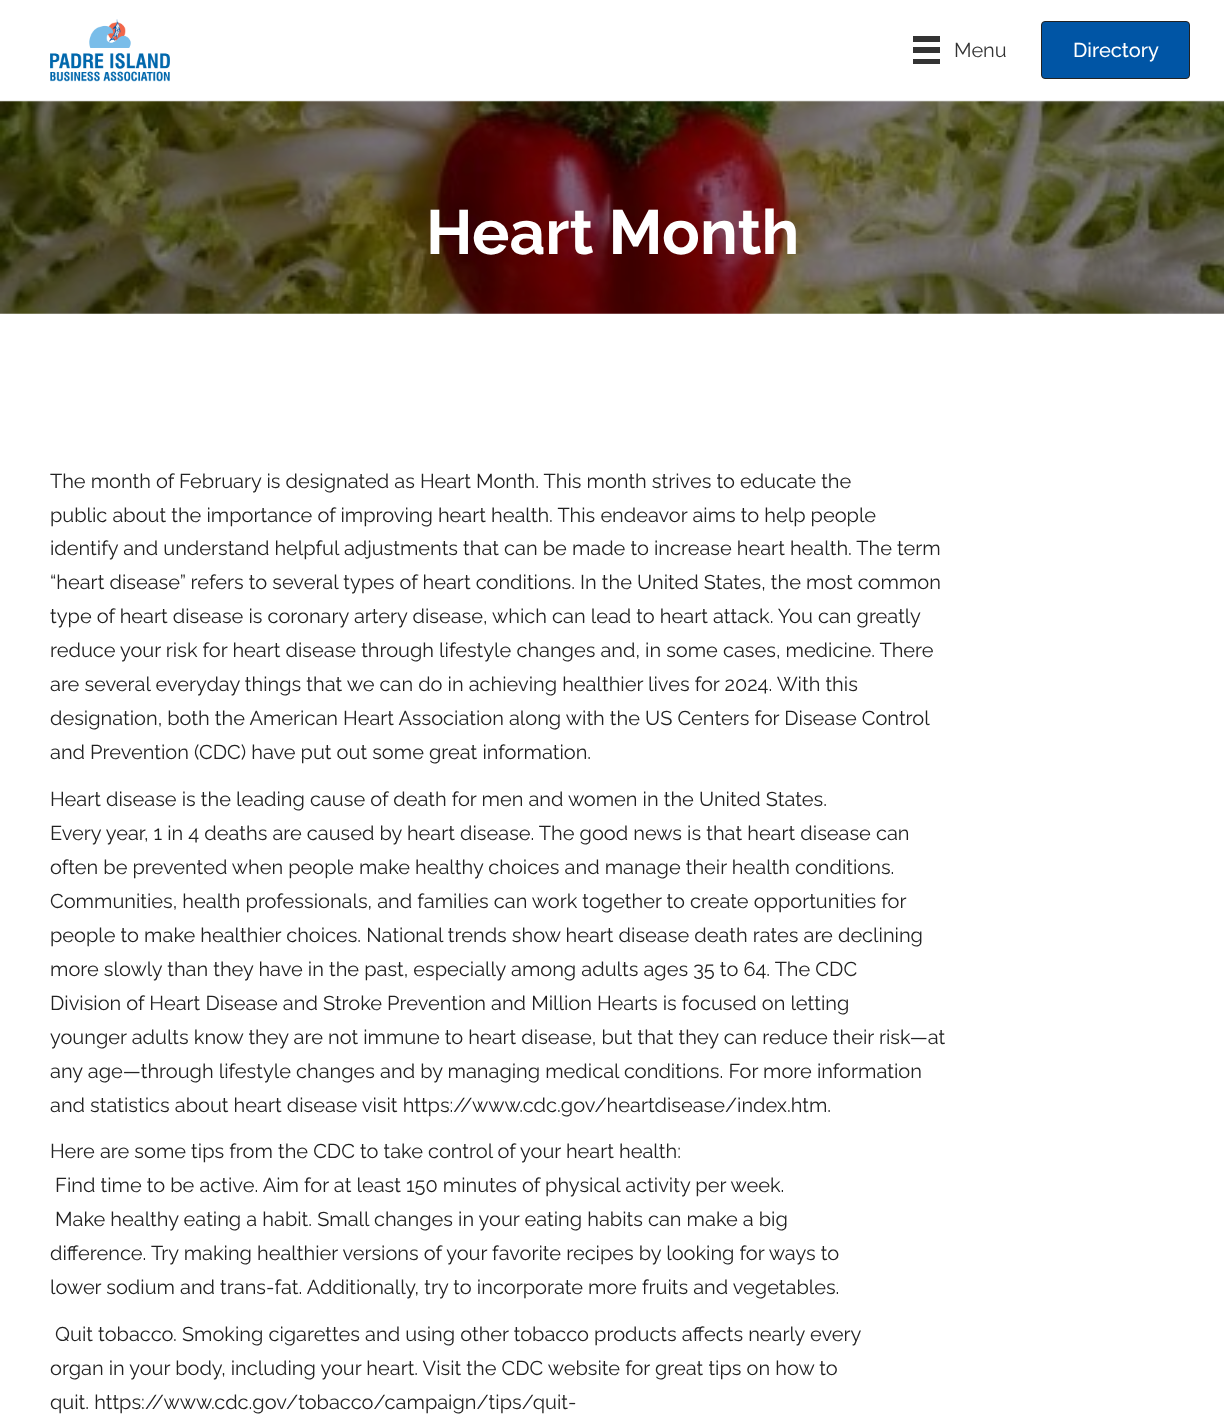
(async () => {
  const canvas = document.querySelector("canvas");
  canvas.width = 1224;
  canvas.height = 1419;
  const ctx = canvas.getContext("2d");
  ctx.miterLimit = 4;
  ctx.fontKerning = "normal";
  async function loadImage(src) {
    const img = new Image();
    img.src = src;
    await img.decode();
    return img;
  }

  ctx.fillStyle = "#ffffff";
  ctx.fillRect(0, 0, 1224, 1419);
  ctx.fillStyle = "#efefef";
  ctx.fillRect(0, 100, 1224, 1);
  ctx.drawImage(await loadImage("img/1.png"), 50, 19, 120, 63);
  for (const [x, y, w, h, color] of [
    [913, 36, 27, 6, "#333333"],
    [913, 47, 27, 6, "#333333"],
    [913, 59, 27, 5, "#333333"],
  ]) {
    ctx.fillStyle = color;
    ctx.fillRect(x, y, w, h);
  }
  ctx.fillStyle = "#0055a5";
  ctx.beginPath();
  ctx.roundRect(1041.5, 21.5, 148, 57, 3.5);
  ctx.fill();
  ctx.strokeStyle = "#222222";
  ctx.stroke();
  ctx.drawImage(await loadImage("img/2.png"), 0, 101, 1224, 213);
  ctx.font = "20px Raleway";
  ctx.fillStyle = "#333333";
  ctx.fillText("Menu", 954, 57);
  ctx.font = "500 20px Raleway";
  ctx.fillStyle = "#ffffff";
  ctx.fillText("Directory", 1073, 57);
  ctx.font = "bold 62.5px Raleway";
  ctx.fillText("Heart Month", 426, 254);
  ctx.font = "20px Raleway";
  ctx.fillStyle = "#222222";
  for (const [text, x, y] of [
    ["The month of February is designated as Heart Month. This month strives to educate the", 50, 488],
    ["public about the importance of improving heart health. This endeavor aims to help people", 50, 522],
    ["identify and understand helpful adjustments that can be made to increase heart health. The term", 50, 555],
    ["“heart disease” refers to several types of heart conditions. In the United States, the most common", 50, 589],
    ["type of heart disease is coronary artery disease, which can lead to heart attack. You can greatly", 50, 623],
    ["reduce your risk for heart disease through lifestyle changes and, in some cases, medicine. There", 50, 657],
    ["are several everyday things that we can do in achieving healthier lives for 2024. With this", 50, 691],
    ["designation, both the American Heart Association along with the US Centers for Disease Control", 50, 725],
    ["and Prevention (CDC) have put out some great information.", 50, 759],
    ["Heart disease is the leading cause of death for men and women in the United States.", 50, 806],
    ["Every year, 1 in 4 deaths are caused by heart disease. The good news is that heart disease can", 50, 840],
    ["often be prevented when people make healthy choices and manage their health conditions.", 50, 874],
    ["Communities, health professionals, and families can work together to create opportunities for", 50, 908],
    ["people to make healthier choices. National trends show heart disease death rates are declining", 50, 942],
    ["more slowly than they have in the past, especially among adults ages 35 to 64. The CDC", 50, 976],
    ["Division of Heart Disease and Stroke Prevention and Million Hearts is focused on letting", 50, 1010],
    ["younger adults know they are not immune to heart disease, but that they can reduce their risk—at", 50, 1044],
    ["any age—through lifestyle changes and by managing medical conditions. For more information", 50, 1078],
    ["and statistics about heart disease visit https://www.cdc.gov/heartdisease/index.htm.", 50, 1112],
    ["Here are some tips from the CDC to take control of your heart health:", 50, 1158],
    [" Find time to be active. Aim for at least 150 minutes of physical activity per week.", 50, 1192],
    [" Make healthy eating a habit. Small changes in your eating habits can make a big", 50, 1226],
    ["difference. Try making healthier versions of your favorite recipes by looking for ways to", 50, 1260],
    ["lower sodium and trans-fat. Additionally, try to incorporate more fruits and vegetables.", 50, 1294],
    [" Quit tobacco. Smoking cigarettes and using other tobacco products affects nearly every", 50, 1341],
    ["organ in your body, including your heart. Visit the CDC website for great tips on how to", 50, 1375],
    ["quit. https://www.cdc.gov/tobacco/campaign/tips/quit-", 50, 1409],
  ]) {
    ctx.fillText(text, x, y);
  }
})();
